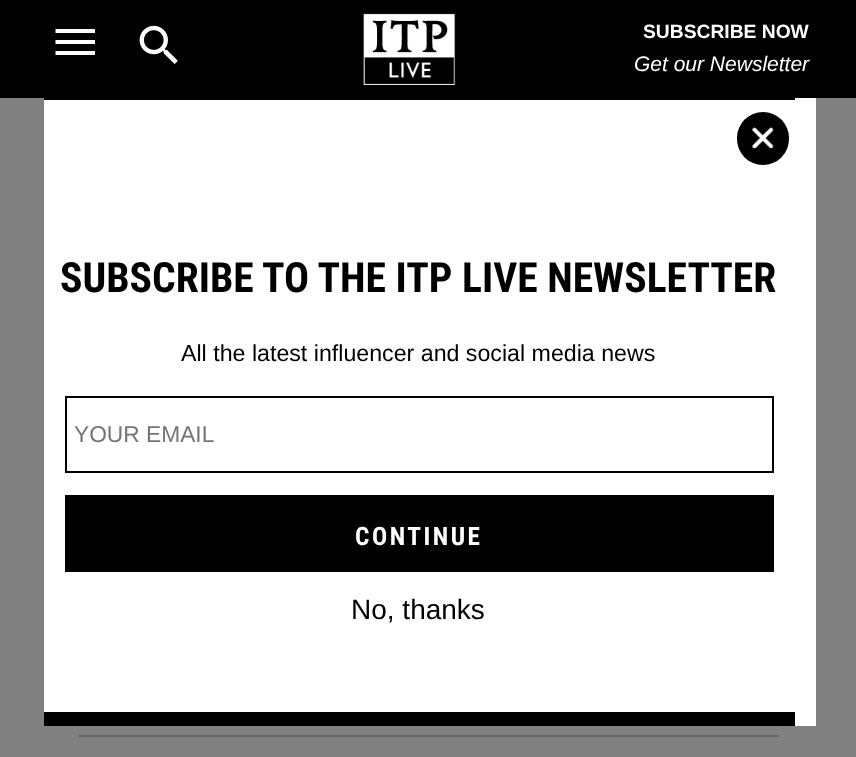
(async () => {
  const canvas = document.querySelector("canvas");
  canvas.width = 856;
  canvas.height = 757;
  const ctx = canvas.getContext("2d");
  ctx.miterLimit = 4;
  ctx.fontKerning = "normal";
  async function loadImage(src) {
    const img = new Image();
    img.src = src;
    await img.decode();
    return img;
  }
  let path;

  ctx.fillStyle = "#808080";
  ctx.fillRect(0, 0, 856, 757);
  ctx.fillStyle = "#000000";
  ctx.fillRect(0, 0, 856, 98);
  ctx.fillStyle = "#ffffff";
  path = new Path2D("M55.5 55H95V51H55.5ZM55.5 44H95V40H55.5ZM55.5 29V33H95V29Z");
  ctx.fill(path);
  ctx.drawImage(await loadImage("img/1.png"), 139, 25, 39, 39);
  ctx.drawImage(await loadImage("img/2.png"), 363, 13, 93, 72);
  ctx.fillRect(44, 98, 772, 628);
  ctx.fillStyle = "#000000";
  ctx.beginPath();
  ctx.roundRect(737, 112, 52, 53, 26);
  ctx.fill();
  ctx.drawImage(await loadImage("img/3.png"), 752, 127, 22, 22);
  ctx.fillRect(44, 98, 751, 2);
  ctx.fillRect(44, 712, 751, 14);
  ctx.strokeStyle = "#000000";
  ctx.lineWidth = 2;
  ctx.strokeRect(66, 397, 707, 75);
  ctx.fillRect(65, 495, 709, 77);
  ctx.fillStyle = "#666666";
  ctx.fillRect(79, 735, 700, 2);
  ctx.font = "bold 19.25px Liberation Sans";
  ctx.fillStyle = "#ffffff";
  ctx.fillText("SUBSCRIBE NOW", 643, 38);
  ctx.font = "italic 21px Liberation Sans";
  ctx.fillText("Get our Newsletter", 634, 71);
  ctx.font = "bold 41.6px Roboto Condensed";
  ctx.fillStyle = "#000000";
  ctx.fillText("SUBSCRIBE TO THE ITP LIVE NEWSLETTER", 60, 292);
  ctx.font = "23.2px Liberation Sans";
  ctx.fillText("All the latest influencer and social media news", 181, 361);
  ctx.font = "22.75px Liberation Sans";
  ctx.fillStyle = "#757575";
  ctx.fillText("YOUR EMAIL", 74, 442);
  ctx.letterSpacing = "2.5px";
  ctx.font = "bold 25.25px Roboto Condensed";
  ctx.fillStyle = "#ffffff";
  ctx.fillText("CONTINUE", 355, 545);
  ctx.letterSpacing = "0px";
  ctx.font = "28px Liberation Sans";
  ctx.fillStyle = "#000000";
  ctx.fillText("No, thanks", 351, 619);
})();
